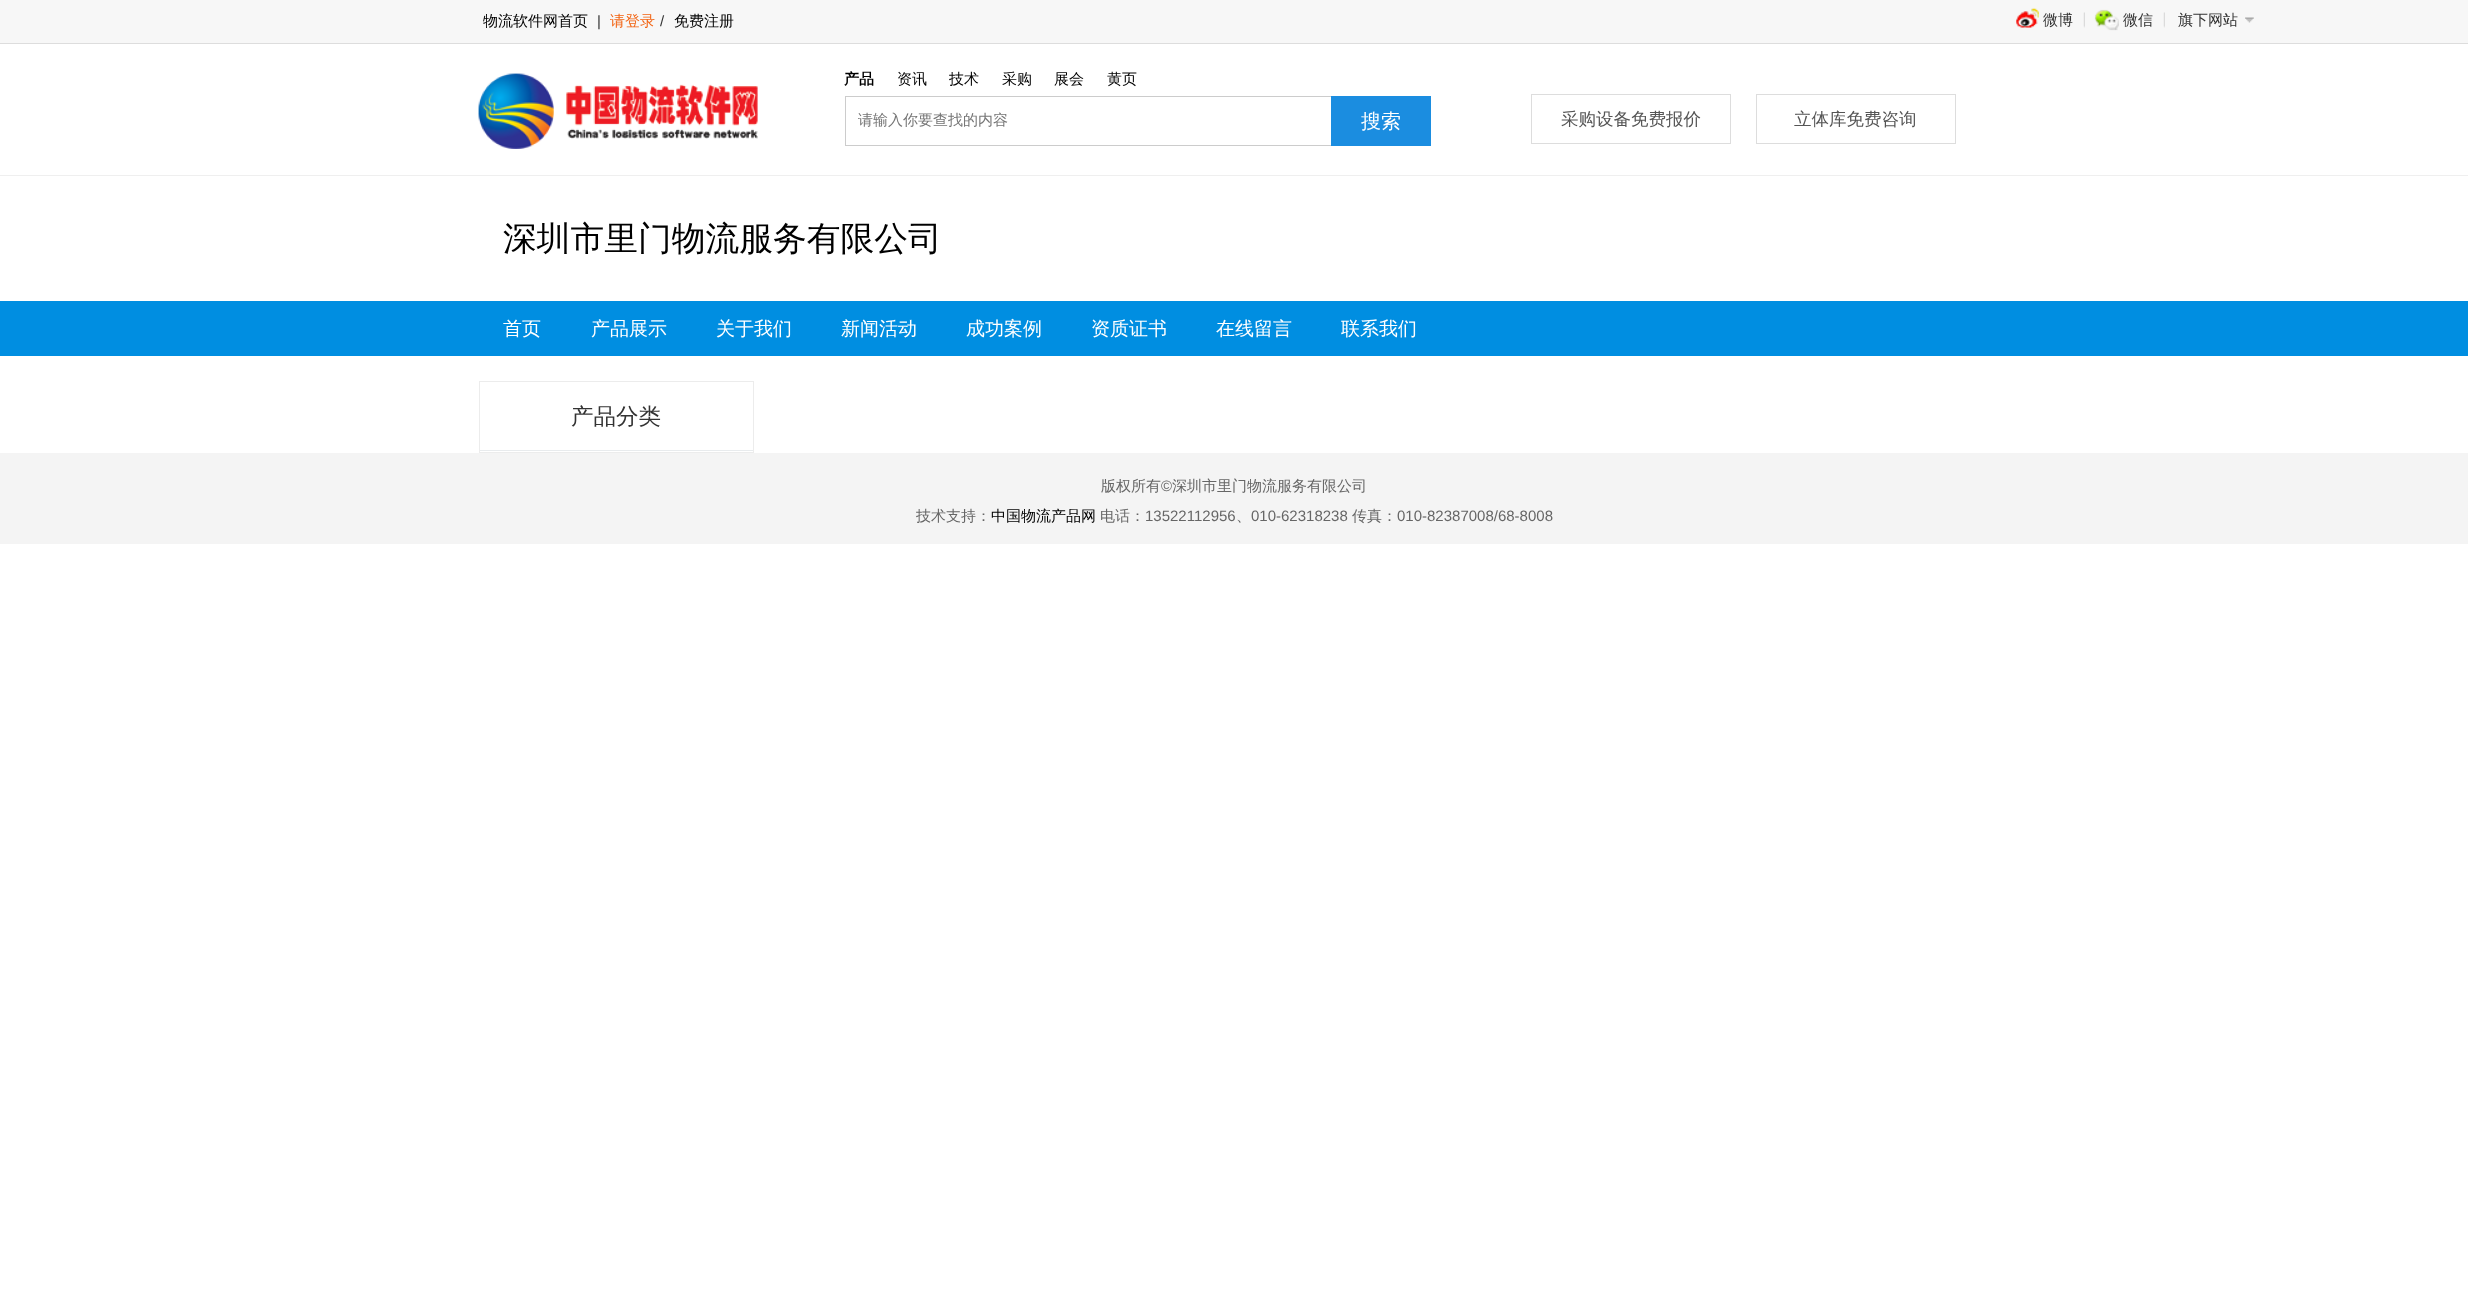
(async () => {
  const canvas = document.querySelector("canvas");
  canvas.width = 2468;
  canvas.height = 1315;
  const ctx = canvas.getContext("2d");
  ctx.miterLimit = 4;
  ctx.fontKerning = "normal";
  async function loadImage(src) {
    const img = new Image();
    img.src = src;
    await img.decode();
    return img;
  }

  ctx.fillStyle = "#ffffff";
  ctx.fillRect(0, 0, 2468, 1315);
  ctx.fillStyle = "#f7f7f7";
  ctx.fillRect(0, 0, 2468, 43);
  ctx.fillStyle = "#dddddd";
  ctx.fillRect(0, 43, 2468, 1);
  ctx.drawImage(await loadImage("img/1.png"), 2083, 12, 2, 16);
  ctx.drawImage(await loadImage("img/2.png"), 2016, 7, 23, 21);
  ctx.drawImage(await loadImage("img/1.png"), 2163, 12, 2, 16);
  ctx.drawImage(await loadImage("img/3.png"), 2094, 9, 25, 22);
  ctx.drawImage(await loadImage("img/4.png"), 2245, 17, 9, 6);
  ctx.drawImage(await loadImage("img/5.png"), 478, 73, 280, 76);
  ctx.drawImage(await loadImage("img/6.png"), 478, 73, 280, 76);
  for (const [x, y, w, h, color] of [
    [845, 96, 486, 1, "#cccccc"],
    [845, 145, 486, 1, "#cccccc"],
    [845, 96, 1, 50, "#cccccc"],
    [1331, 96, 100, 50, "#1b8de0"],
  ]) {
    ctx.fillStyle = color;
    ctx.fillRect(x, y, w, h);
  }
  ctx.strokeStyle = "#dddddd";
  ctx.strokeRect(1531.5, 94.5, 199, 49);
  ctx.strokeRect(1756.5, 94.5, 199, 49);
  ctx.fillStyle = "#efefef";
  ctx.fillRect(0, 175, 2468, 1);
  ctx.fillStyle = "#008ee1";
  ctx.fillRect(0, 301, 2468, 55);
  ctx.strokeStyle = "#ececec";
  ctx.strokeRect(479.5, 381.5, 274, 71);
  ctx.fillStyle = "#e8ebed";
  ctx.fillRect(480, 450, 273, 1);
  ctx.fillStyle = "#f4f4f4";
  ctx.fillRect(0, 453, 2468, 91);
  ctx.font = "500 15px WenQuanYi Zen Hei";
  ctx.fillStyle = "#000000";
  ctx.fillText("物流软件网首页", 483, 26);
  ctx.font = "15px Liberation Sans";
  ctx.fillStyle = "#333333";
  ctx.fillText("|", 597, 26);
  ctx.font = "500 15px WenQuanYi Zen Hei";
  ctx.fillStyle = "#f26413";
  ctx.fillText("请登录", 610, 26);
  ctx.font = "15px Liberation Sans";
  ctx.fillStyle = "#333333";
  ctx.fillText("/", 660, 26);
  ctx.font = "500 15px WenQuanYi Zen Hei";
  ctx.fillStyle = "#000000";
  ctx.fillText("免费注册", 674, 26);
  ctx.fillStyle = "#333333";
  for (const [text, x, y] of [
    ["微博", 2043, 25],
    ["微信", 2123, 25],
    ["旗下网站", 2178, 25],
  ]) {
    ctx.fillText(text, x, y);
  }
  ctx.font = "bold 15px WenQuanYi Zen Hei";
  ctx.fillStyle = "#000000";
  ctx.fillText("产品", 844, 84);
  ctx.font = "500 15px WenQuanYi Zen Hei";
  for (const [text, x, y] of [
    ["资讯", 897, 84],
    ["技术", 949, 84],
    ["采购", 1002, 84],
    ["展会", 1054, 84],
    ["黄页", 1107, 84],
  ]) {
    ctx.fillText(text, x, y);
  }
  ctx.fillStyle = "#757575";
  ctx.fillText("请输入你要查找的内容", 858, 125);
  ctx.font = "500 20px WenQuanYi Zen Hei";
  ctx.fillStyle = "#ffffff";
  ctx.fillText("搜索", 1361, 128);
  ctx.font = "500 17.5px WenQuanYi Zen Hei";
  ctx.fillStyle = "#555555";
  ctx.fillText("采购设备免费报价", 1561, 125);
  ctx.fillText("立体库免费咨询", 1794, 125);
  ctx.font = "500 33.75px WenQuanYi Zen Hei";
  ctx.fillStyle = "#000000";
  ctx.fillText("深圳市里门物流服务有限公司", 503, 250);
  ctx.font = "500 19px WenQuanYi Zen Hei";
  ctx.fillStyle = "#ffffff";
  for (const [text, x, y] of [
    ["首页", 503, 335],
    ["产品展示", 591, 335],
    ["关于我们", 716, 335],
    ["新闻活动", 841, 335],
    ["成功案例", 966, 335],
    ["资质证书", 1091, 335],
    ["在线留言", 1216, 335],
    ["联系我们", 1341, 335],
  ]) {
    ctx.fillText(text, x, y);
  }
  ctx.font = "500 22.5px WenQuanYi Zen Hei";
  ctx.fillStyle = "#333333";
  ctx.fillText("产品分类", 571, 424);
  ctx.font = "500 15px WenQuanYi Zen Hei";
  ctx.fillStyle = "#666666";
  ctx.fillText("版权所有", 1101, 491);
  ctx.font = "15px Liberation Sans";
  ctx.fillText("©", 1161, 491);
  ctx.font = "500 15px WenQuanYi Zen Hei";
  ctx.fillText("深圳市里门物流服务有限公司", 1172, 491);
  ctx.fillText("技术支持：", 916, 521);
  ctx.fillStyle = "#000000";
  ctx.fillText("中国物流产品网", 991, 521);
  ctx.fillStyle = "#666666";
  ctx.fillText("电话：", 1100, 521);
  ctx.font = "15px Liberation Sans";
  ctx.fillText("13522112956", 1145, 521);
  ctx.font = "500 15px WenQuanYi Zen Hei";
  ctx.fillText("、", 1236, 521);
  ctx.font = "15px Liberation Sans";
  ctx.fillText("010-62318238", 1251, 521);
  ctx.font = "500 15px WenQuanYi Zen Hei";
  ctx.fillText("传真：", 1352, 521);
  ctx.font = "15px Liberation Sans";
  ctx.fillText("010-82387008/68-8008", 1397, 521);
})();
